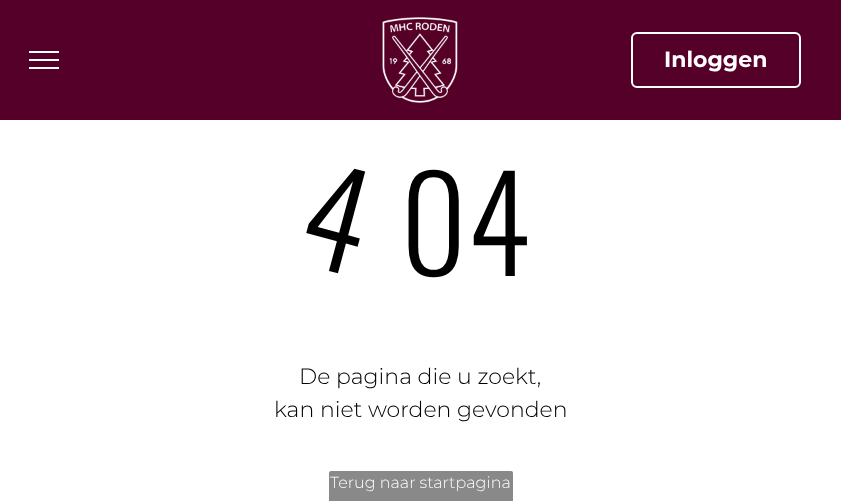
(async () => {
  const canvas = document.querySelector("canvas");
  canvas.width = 841;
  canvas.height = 501;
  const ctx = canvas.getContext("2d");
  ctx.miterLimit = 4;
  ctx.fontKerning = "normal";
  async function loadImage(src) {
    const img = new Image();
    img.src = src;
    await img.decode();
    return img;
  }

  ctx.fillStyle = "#ffffff";
  ctx.fillRect(0, 0, 841, 501);
  for (const [x, y, w, h, color] of [
    [0, 0, 841, 120, "#550028"],
    [29, 51, 30, 2, "#ffffff"],
    [29, 59, 30, 2, "#ffffff"],
    [29, 67, 30, 2, "#ffffff"],
  ]) {
    ctx.fillStyle = color;
    ctx.fillRect(x, y, w, h);
  }
  ctx.drawImage(await loadImage("img/1.png"), 382, 17, 76, 86);
  ctx.beginPath();
  ctx.roundRect(632, 33, 168, 54, 5);
  ctx.strokeStyle = "#ffffff";
  ctx.lineWidth = 2;
  ctx.stroke();
  ctx.fillStyle = "#898989";
  ctx.beginPath();
  ctx.roundRect(329, 471, 184, 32, 2);
  ctx.fill();
  ctx.font = "bold 22px Montserrat";
  ctx.fillStyle = "#ffffff";
  ctx.fillText("Inloggen", 664, 67);
  ctx.font = "300 130px Oswald";
  ctx.fillStyle = "#000000";
  ctx.save();
  ctx.translate(292, 261);
  ctx.rotate(15 * Math.PI / 180);
  ctx.fillText("4", 0, 0);
  ctx.restore();
  ctx.fillText("04", 400, 276);
  ctx.font = "300 22px Montserrat";
  ctx.fillText("De pagina die u zoekt,", 299, 384);
  ctx.fillText("kan niet worden gevonden", 274, 417);
  ctx.font = "300 16px Montserrat";
  ctx.fillStyle = "#ffffff";
  ctx.fillText("Terug naar startpagina", 330, 488);
})();
